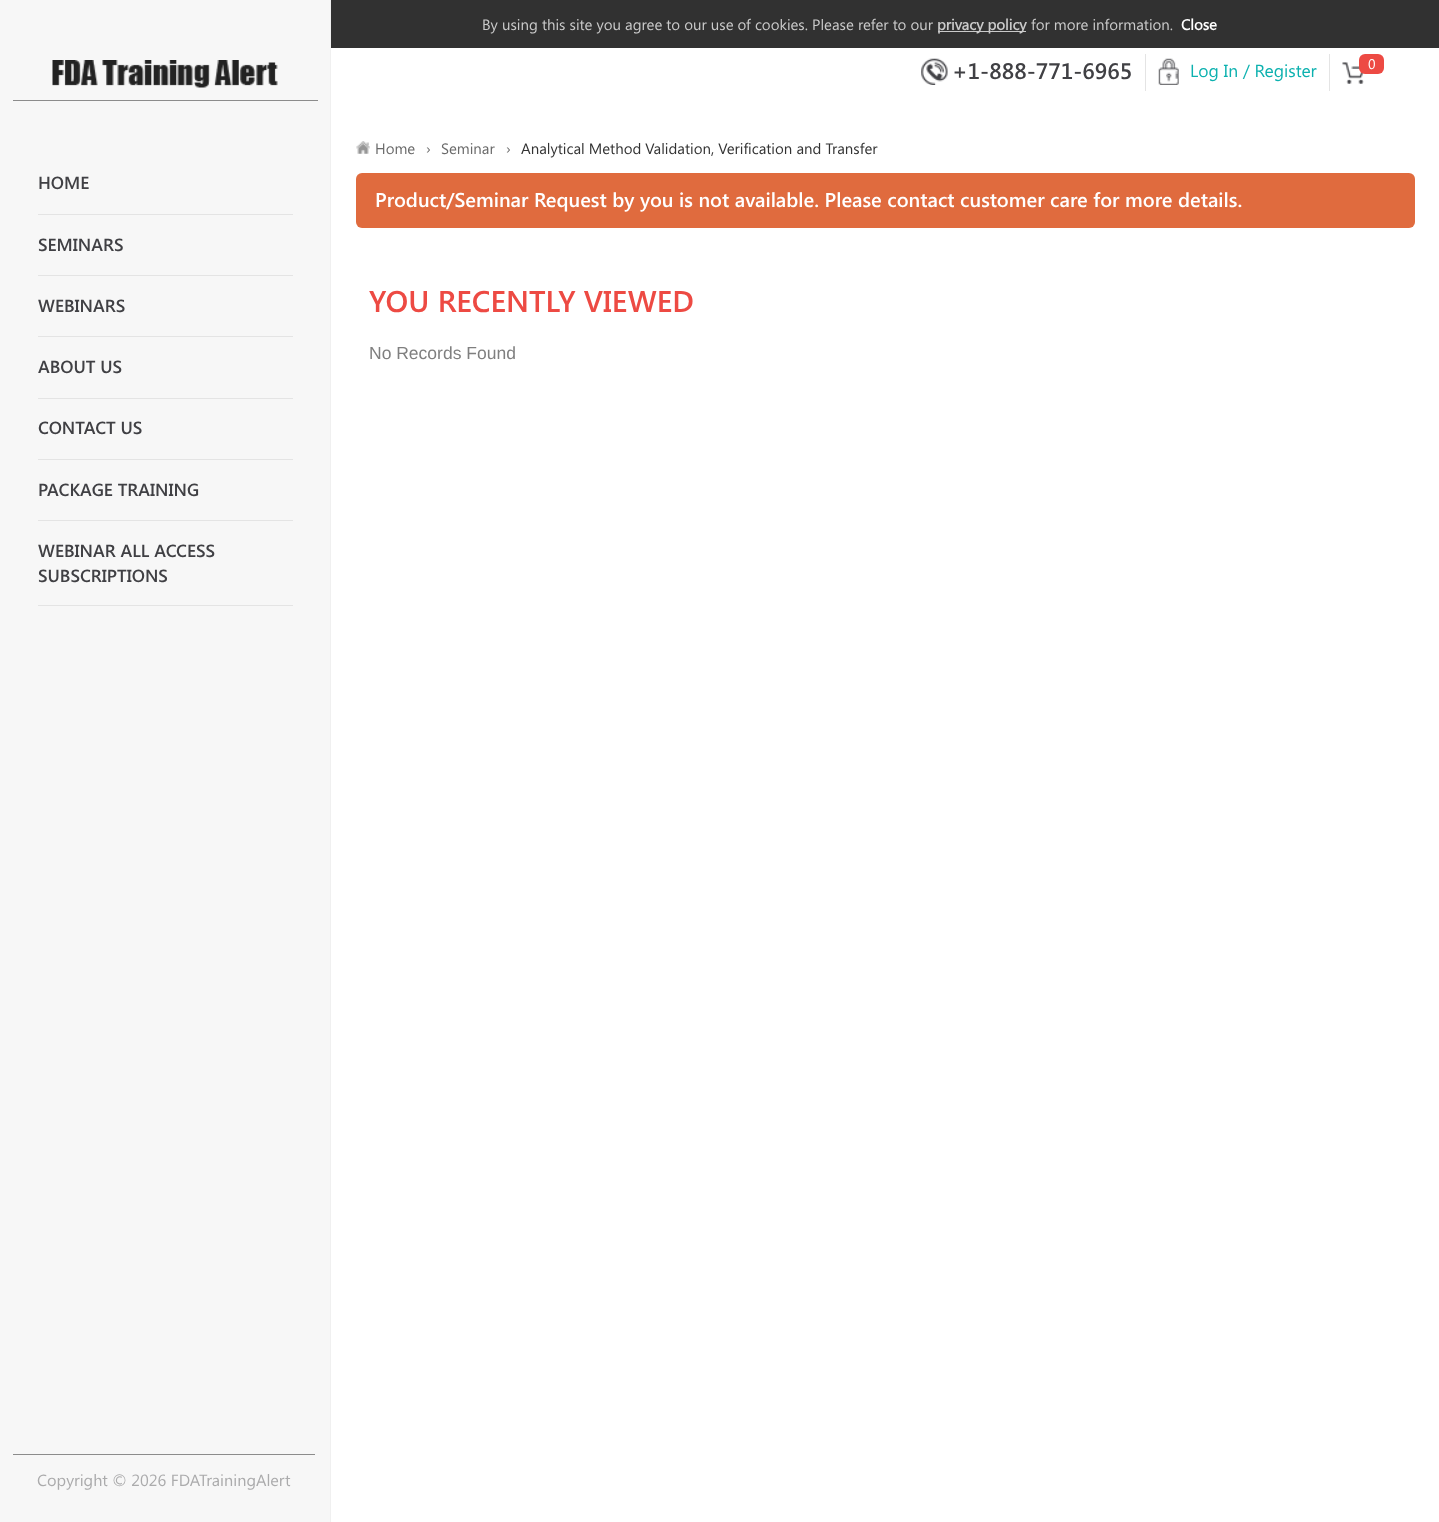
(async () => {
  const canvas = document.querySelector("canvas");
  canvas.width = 1439;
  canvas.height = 1522;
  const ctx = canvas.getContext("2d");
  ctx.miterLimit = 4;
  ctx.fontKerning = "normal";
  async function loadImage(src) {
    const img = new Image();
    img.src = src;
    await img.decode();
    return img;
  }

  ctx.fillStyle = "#ffffff";
  ctx.fillRect(0, 0, 1439, 1522);
  for (const [x, y, w, h, color] of [
    [331, 0, 1108, 48, "#313131"],
    [938, 31, 88, 1, "#cacaca"],
    [0, 0, 330, 1522, "#f7f7f7"],
    [330, 0, 1, 1522, "#f0f0f0"],
    [13, 100, 305, 1, "#8c8c8c"],
  ]) {
    ctx.fillStyle = color;
    ctx.fillRect(x, y, w, h);
  }
  ctx.drawImage(await loadImage("img/1.png"), 52, 60, 226, 28);
  for (const [x, y, w, h, color] of [
    [38, 214, 255, 1, "#e4e4e4"],
    [38, 275, 255, 1, "#e4e4e4"],
    [38, 336, 255, 1, "#e4e4e4"],
    [38, 398, 255, 1, "#e4e4e4"],
    [38, 459, 255, 1, "#e4e4e4"],
    [38, 520, 255, 1, "#e4e4e4"],
    [38, 605, 255, 1, "#e4e4e4"],
    [13, 1454, 302, 1, "#8c8c8c"],
    [1145, 54, 1, 37, "#e4e4e4"],
  ]) {
    ctx.fillStyle = color;
    ctx.fillRect(x, y, w, h);
  }
  ctx.drawImage(await loadImage("img/2.png"), 921, 58, 27, 27);
  ctx.fillRect(1329, 54, 1, 37);
  ctx.drawImage(await loadImage("img/3.png"), 1158, 58, 21, 27);
  ctx.drawImage(await loadImage("img/4.png"), 1342, 62, 22, 22);
  ctx.fillStyle = "#ed4a43";
  ctx.beginPath();
  ctx.roundRect(1359, 54, 25, 20, 6);
  ctx.fill();
  ctx.drawImage(await loadImage("img/5.png"), 356, 141, 14, 13);
  ctx.fillStyle = "#e06b3e";
  ctx.beginPath();
  ctx.roundRect(356, 173, 1059, 55, 6);
  ctx.fill();
  ctx.font = "15px Segoe UI";
  ctx.fillStyle = "#cacaca";
  ctx.fillText("By using this site you agree to our use of cookies. Please refer to our", 482, 30);
  ctx.font = "bold 15px Segoe UI";
  ctx.fillText("privacy policy", 937, 30);
  ctx.font = "15px Segoe UI";
  ctx.fillText("for more information.", 1031, 30);
  ctx.font = "bold 15px Segoe UI";
  ctx.fillStyle = "#ffffff";
  ctx.fillText("Close", 1181, 30);
  ctx.font = "600 17.5px Segoe UI";
  ctx.fillStyle = "#404044";
  for (const [text, x, y] of [
    ["HOME", 38, 189],
    ["SEMINARS", 38, 251],
    ["WEBINARS", 38, 312],
    ["ABOUT US", 38, 373],
    ["CONTACT US", 38, 434],
    ["PACKAGE TRAINING", 38, 496],
    ["WEBINAR ALL ACCESS", 38, 557],
    ["SUBSCRIPTIONS", 38, 582],
  ]) {
    ctx.fillText(text, x, y);
  }
  ctx.font = "16.25px Segoe UI";
  ctx.fillStyle = "#ababac";
  ctx.fillText("Copyright © 2026 FDATrainingAlert", 37, 1486);
  ctx.font = "600 22.5px Segoe UI";
  ctx.fillStyle = "#404044";
  ctx.fillText("+1-888-771-6965", 952, 79);
  ctx.font = "17.5px Segoe UI";
  ctx.fillStyle = "#0cb1af";
  ctx.fillText("Log In / Register", 1190, 77);
  ctx.font = "14px Segoe UI";
  ctx.fillStyle = "#ffffff";
  ctx.fillText("0", 1368, 69);
  ctx.font = "15px Segoe UI";
  ctx.fillStyle = "#6a6a6a";
  for (const [text, x, y] of [
    ["Home", 375, 154],
    ["›", 426, 154],
    ["Seminar", 441, 154],
    ["›", 506, 154],
  ]) {
    ctx.fillText(text, x, y);
  }
  ctx.fillStyle = "#333333";
  ctx.fillText("Analytical Method Validation, Verification and Transfer", 521, 154);
  ctx.font = "600 20px Segoe UI";
  ctx.fillStyle = "#ffffff";
  ctx.fillText("Product/Seminar Request by you is not available. Please contact customer care for more details.", 375, 207);
  ctx.font = "600 30px Segoe UI";
  ctx.fillStyle = "#ed4a43";
  ctx.fillText("YOU RECENTLY VIEWED", 369, 312);
  ctx.font = "17.5px Liberation Sans";
  ctx.fillStyle = "#7f7f7f";
  ctx.fillText("No Records Found", 369, 359);
})();
